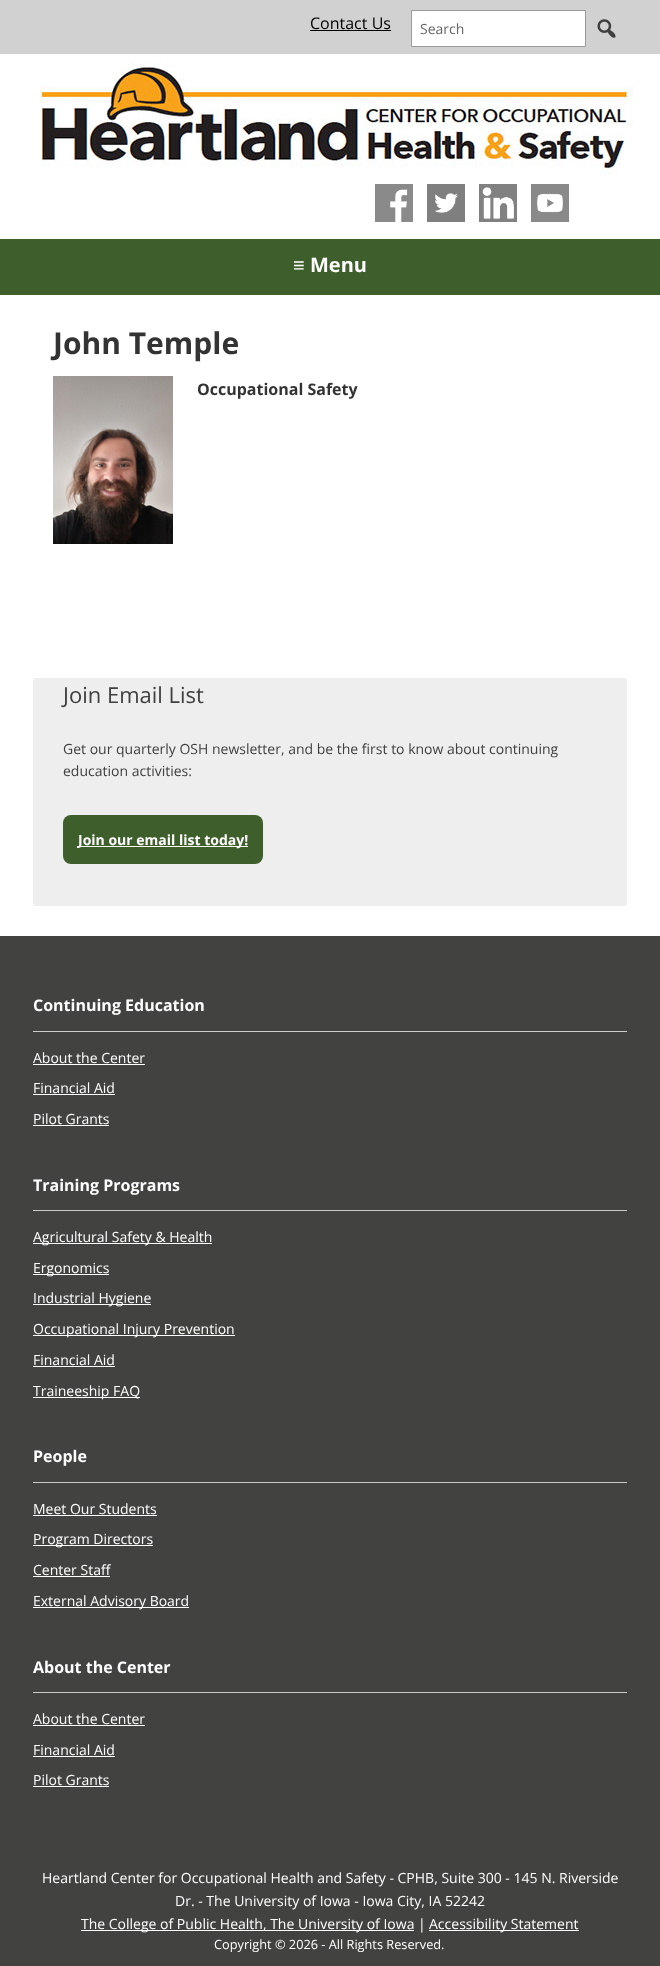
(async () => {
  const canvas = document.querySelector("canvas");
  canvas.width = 660;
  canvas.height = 1966;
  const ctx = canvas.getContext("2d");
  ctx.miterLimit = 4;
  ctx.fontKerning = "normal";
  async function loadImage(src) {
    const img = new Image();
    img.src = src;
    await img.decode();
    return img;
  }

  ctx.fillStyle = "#ffffff";
  ctx.fillRect(0, 0, 660, 1966);
  ctx.fillStyle = "#d1d1d1";
  ctx.fillRect(0, 0, 660, 54);
  ctx.fillStyle = "#000000";
  ctx.fillRect(310, 30, 81, 1);
  ctx.fillStyle = "#ffffff";
  ctx.beginPath();
  ctx.rect(411.5, 10.5, 174, 36);
  ctx.fill();
  ctx.strokeStyle = "#9b9a9a";
  ctx.stroke();
  ctx.drawImage(await loadImage("img/1.png"), 597, 19, 19, 19);
  ctx.drawImage(await loadImage("img/2.png"), 41, 62, 592, 112);
  ctx.drawImage(await loadImage("img/3.png"), 375, 184, 38, 38);
  ctx.drawImage(await loadImage("img/4.png"), 427, 184, 38, 38);
  ctx.drawImage(await loadImage("img/5.png"), 479, 184, 38, 38);
  ctx.drawImage(await loadImage("img/6.png"), 531, 184, 38, 38);
  ctx.fillStyle = "#3e5f2b";
  ctx.fillRect(0, 239, 660, 56);
  ctx.drawImage(await loadImage("img/7.png"), 53, 376, 120, 168);
  ctx.fillStyle = "#eeeeee";
  ctx.beginPath();
  ctx.roundRect(33, 678, 594, 228, 3);
  ctx.fill();
  ctx.fillStyle = "#3e5f2b";
  ctx.beginPath();
  ctx.roundRect(63, 815, 200, 49, 8);
  ctx.fill();
  for (const [x, y, w, h, color] of [
    [78, 846, 170, 1, "#ffffff"],
    [0, 936, 660, 1030, "#424341"],
    [33, 1031, 594, 1, "#cccccc"],
    [33, 1064, 112, 1, "#ffffff"],
    [33, 1094, 82, 1, "#ffffff"],
    [33, 1125, 76, 1, "#ffffff"],
    [33, 1210, 594, 1, "#cccccc"],
    [33, 1243, 179, 1, "#ffffff"],
    [33, 1274, 76, 1, "#ffffff"],
    [33, 1304, 118, 1, "#ffffff"],
    [33, 1335, 202, 1, "#ffffff"],
    [33, 1366, 82, 1, "#ffffff"],
    [33, 1397, 107, 1, "#ffffff"],
    [33, 1482, 594, 1, "#cccccc"],
    [33, 1515, 124, 1, "#ffffff"],
    [33, 1545, 120, 1, "#ffffff"],
    [33, 1576, 77, 1, "#ffffff"],
    [33, 1607, 156, 1, "#ffffff"],
    [33, 1692, 594, 1, "#cccccc"],
    [33, 1725, 112, 1, "#ffffff"],
    [33, 1756, 82, 1, "#ffffff"],
    [33, 1786, 76, 1, "#ffffff"],
    [81, 1930, 333, 1, "#ffffff"],
    [429, 1930, 150, 1, "#ffffff"],
  ]) {
    ctx.fillStyle = color;
    ctx.fillRect(x, y, w, h);
  }
  ctx.font = "16px Open Sans";
  ctx.fillStyle = "#000000";
  ctx.fillText("Contact Us", 310, 29);
  ctx.font = "14px Open Sans";
  ctx.fillStyle = "#666666";
  ctx.fillText("Search", 420, 34);
  ctx.font = "bold 20px Liberation Sans";
  ctx.fillStyle = "#ffffff";
  ctx.fillText("≡", 293, 272);
  ctx.font = "bold 20px Open Sans";
  ctx.fillText("Menu", 310, 272);
  ctx.font = "bold 30px Open Sans";
  ctx.fillStyle = "#333333";
  ctx.fillText("John Temple", 53, 354);
  ctx.font = "bold 16px Open Sans";
  ctx.fillText("Occupational Safety", 197, 395);
  ctx.font = "22px Open Sans";
  ctx.fillStyle = "#3f3f3f";
  ctx.fillText("Join Email List", 63, 703);
  ctx.font = "14px Open Sans";
  ctx.fillText("Get our quarterly OSH newsletter, and be the first to know about continuing", 63, 754);
  ctx.fillText("education activities:", 63, 776);
  ctx.font = "bold 14px Open Sans";
  ctx.fillStyle = "#ffffff";
  ctx.fillText("Join our email list today!", 78, 845);
  ctx.font = "bold 16px Open Sans";
  ctx.fillText("Continuing Education", 33, 1011);
  ctx.font = "14px Open Sans";
  for (const [text, x, y] of [
    ["About the Center", 33, 1063],
    ["Financial Aid", 33, 1093],
    ["Pilot Grants", 33, 1124],
  ]) {
    ctx.fillText(text, x, y);
  }
  ctx.font = "bold 16px Open Sans";
  ctx.fillText("Training Programs", 33, 1191);
  ctx.font = "14px Open Sans";
  for (const [text, x, y] of [
    ["Agricultural Safety & Health", 33, 1242],
    ["Ergonomics", 33, 1273],
    ["Industrial Hygiene", 33, 1303],
    ["Occupational Injury Prevention", 33, 1334],
    ["Financial Aid", 33, 1365],
    ["Traineeship FAQ", 33, 1396],
  ]) {
    ctx.fillText(text, x, y);
  }
  ctx.font = "bold 16px Open Sans";
  ctx.fillText("People", 33, 1462);
  ctx.font = "14px Open Sans";
  for (const [text, x, y] of [
    ["Meet Our Students", 33, 1514],
    ["Program Directors", 33, 1544],
    ["Center Staff", 33, 1575],
    ["External Advisory Board", 33, 1606],
  ]) {
    ctx.fillText(text, x, y);
  }
  ctx.font = "bold 16px Open Sans";
  ctx.fillText("About the Center", 33, 1673);
  ctx.font = "14px Open Sans";
  for (const [text, x, y] of [
    ["About the Center", 33, 1724],
    ["Financial Aid", 33, 1755],
    ["Pilot Grants", 33, 1785],
    ["Heartland Center for Occupational Health and Safety - CPHB, Suite 300 - 145 N. Riverside", 42, 1883],
    ["Dr. - The University of Iowa - Iowa City, IA 52242", 175, 1906],
    ["The College of Public Health, The University of Iowa |", 81, 1929],
    ["Accessibility Statement", 429, 1929],
  ]) {
    ctx.fillText(text, x, y);
  }
  ctx.font = "12.75px Open Sans";
  ctx.fillText("Copyright © 2026 - All Rights Reserved.", 214, 1949);
})();
